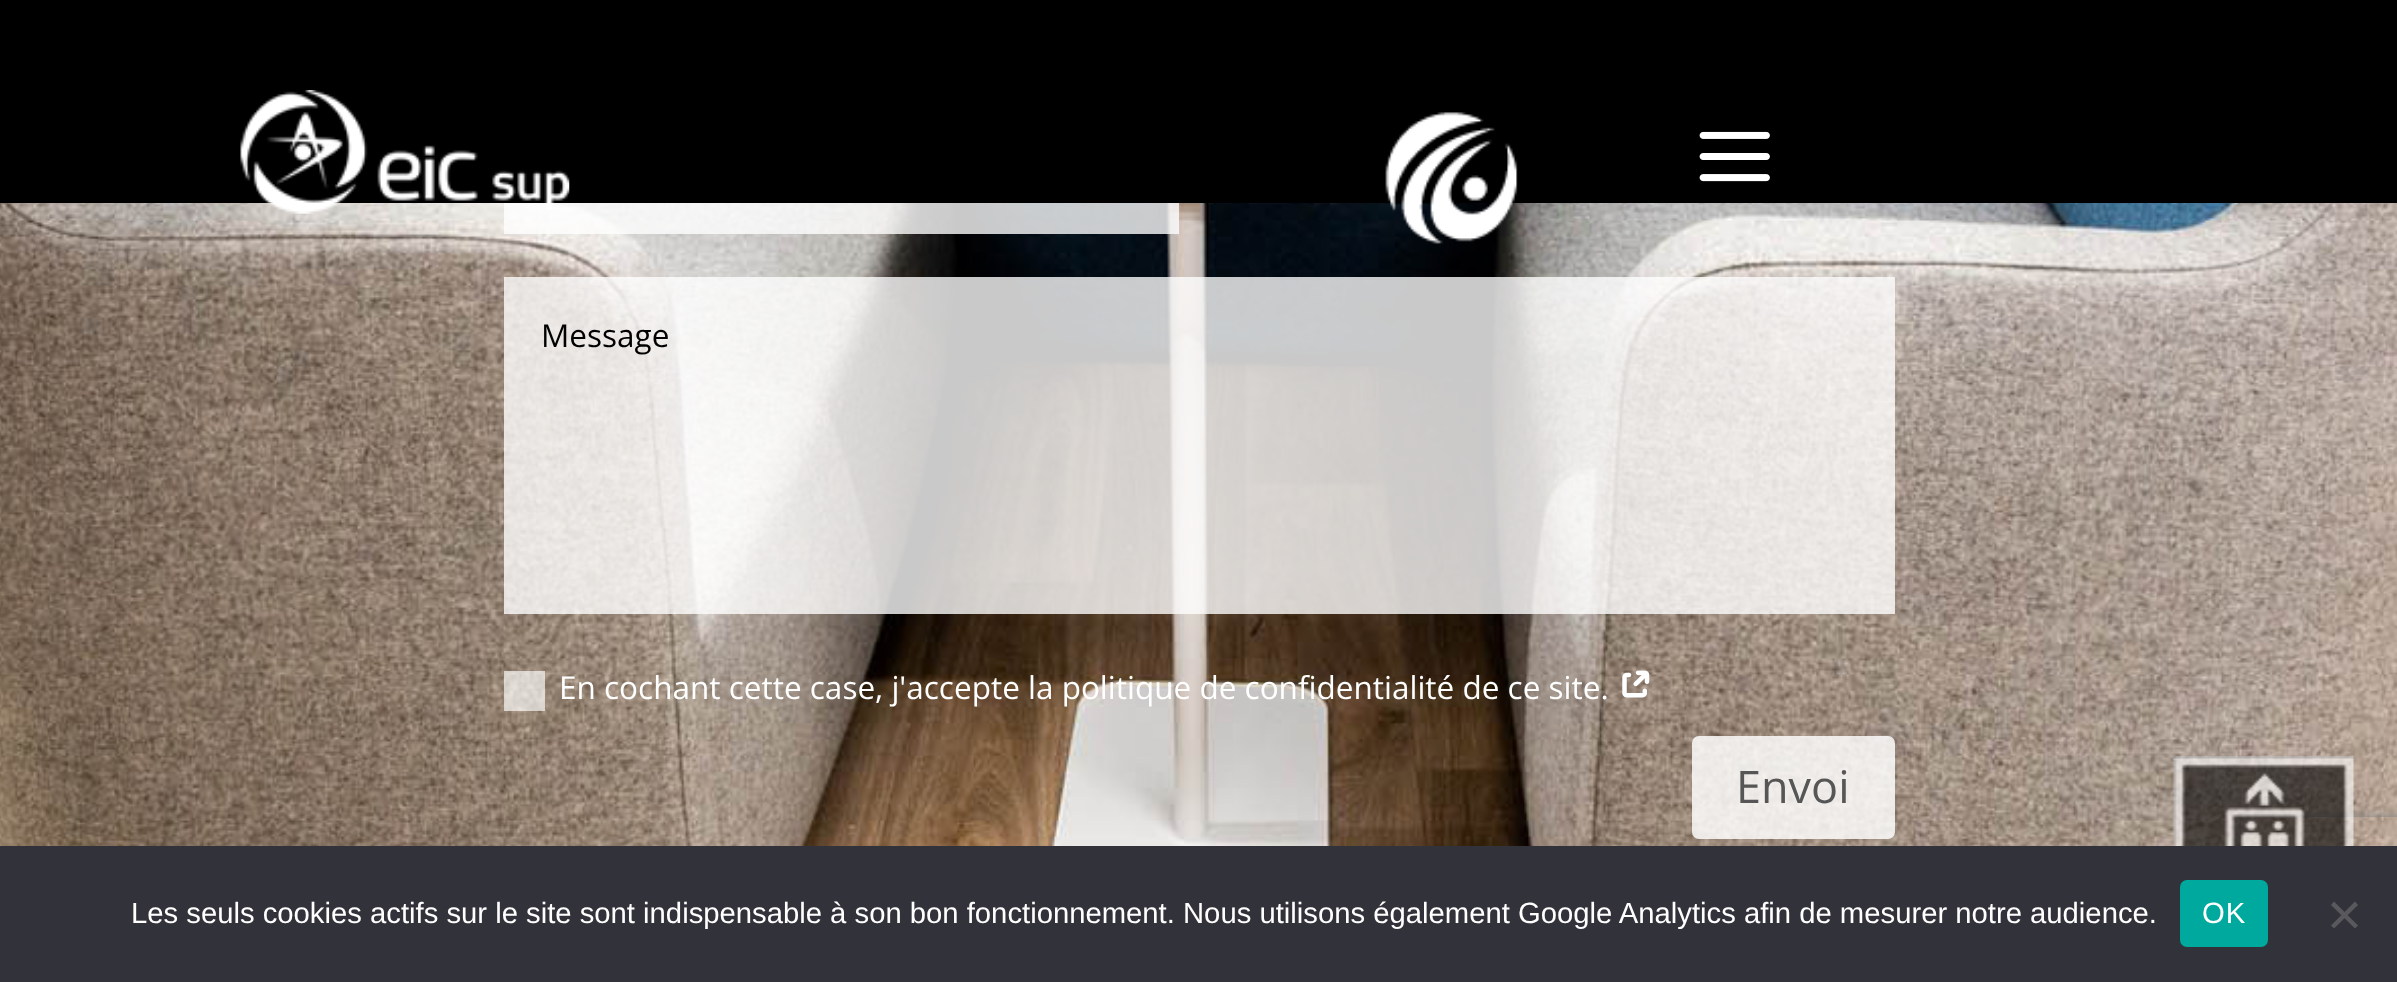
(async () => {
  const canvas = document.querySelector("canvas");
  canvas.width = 2397;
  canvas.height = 982;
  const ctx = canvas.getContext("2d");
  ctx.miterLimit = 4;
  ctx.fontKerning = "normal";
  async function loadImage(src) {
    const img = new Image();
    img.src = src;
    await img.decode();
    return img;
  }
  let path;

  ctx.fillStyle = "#ffffff";
  ctx.fillRect(0, 0, 2397, 982);
  ctx.fillStyle = "#000000";
  ctx.fillRect(0, 0, 2397, 203);
  ctx.drawImage(await loadImage("img/4.png"), 0, 203, 2397, 643);
  ctx.fillStyle = "rgba(255, 255, 255, 0.79)";
  ctx.fillRect(504, 203, 675, 31);
  ctx.drawImage(await loadImage("img/1.png"), 240, 90, 330, 124);
  ctx.drawImage(await loadImage("img/2.png"), 1385, 112, 133, 132);
  ctx.drawImage(await loadImage("img/3.png"), 1699, 131, 71, 51);
  ctx.fillRect(504, 277, 1391, 337);
  ctx.fillStyle = "rgba(255, 255, 255, 0.66)";
  ctx.fillRect(504, 671, 41, 40);
  ctx.drawImage(await loadImage("img/5.png"), 1622, 670, 28, 28);
  ctx.fillStyle = "rgba(255, 255, 255, 0.83)";
  ctx.beginPath();
  ctx.roundRect(1692, 736, 203, 103, 7);
  ctx.fill();
  ctx.save();
  path = new Path2D("M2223 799H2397V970H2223ZM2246 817H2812C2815 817 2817 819 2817 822V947C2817 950 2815 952 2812 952H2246C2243 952 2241 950 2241 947V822C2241 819 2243 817 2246 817Z");
  ctx.clip(path, "evenodd");
  ctx.fillStyle = "#808080";
  ctx.filter = "blur(5.5px)";
  ctx.beginPath();
  ctx.roundRect(2241, 817, 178, 135, 5);
  ctx.fill();
  ctx.filter = "none";
  ctx.restore();
  ctx.drawImage(await loadImage("img/6.png"), 2173, 756, 181, 90);
  ctx.fillStyle = "#32323a";
  ctx.fillRect(0, 846, 2397, 136);
  ctx.fillStyle = "#00a99d";
  ctx.beginPath();
  ctx.roundRect(2180, 880, 88, 67, 7);
  ctx.fill();
  ctx.fillStyle = "#59595d";
  path = new Path2D("M2355 901.5L2358 905L2334 928.5L2331 925.5Z");
  ctx.fill(path);
  path = new Path2D("M2331 905L2334 901.5L2358 925.5L2355 928.5Z");
  ctx.fill(path);
  ctx.font = "31.5px Open Sans";
  ctx.fillStyle = "#000000";
  ctx.fillText("Message", 541, 347);
  ctx.fillStyle = "#ffffff";
  ctx.fillText("En cochant cette case, j'accepte la politique de confidentialité de ce site.", 559, 699);
  ctx.font = "45px Open Sans";
  ctx.fillStyle = "#565656";
  ctx.fillText("Envoi", 1736, 803);
  ctx.font = "29.25px Liberation Sans";
  ctx.fillStyle = "#ffffff";
  ctx.fillText("Les seuls cookies actifs sur le site sont indispensable à son bon fonctionnement. Nous utilisons également Google Analytics afin de mesurer notre audience.", 131, 923);
  ctx.letterSpacing = "1px";
  ctx.fillText("OK", 2202, 923);
})();
